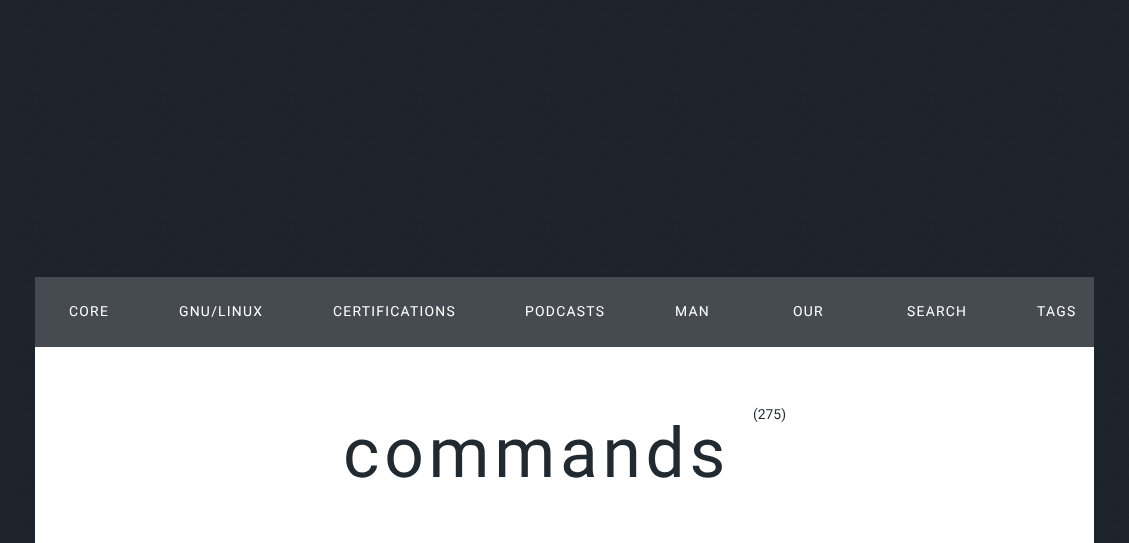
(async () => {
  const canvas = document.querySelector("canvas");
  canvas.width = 1129;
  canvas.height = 543;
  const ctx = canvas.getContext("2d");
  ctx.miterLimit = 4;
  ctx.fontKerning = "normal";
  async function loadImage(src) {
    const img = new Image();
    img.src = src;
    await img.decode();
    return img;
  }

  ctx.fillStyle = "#212931";
  ctx.fillRect(0, 0, 1129, 543);
  ctx.drawImage(await loadImage("img/1.png"), 0, 0, 1129, 543);
  ctx.fillStyle = "#454b51";
  ctx.fillRect(35, 277, 1059, 70);
  ctx.fillStyle = "#ffffff";
  ctx.fillRect(35, 347, 1059, 196);
  ctx.letterSpacing = "1.25px";
  ctx.font = "13.9px Roboto";
  for (const [text, x, y] of [
    ["CORE", 69, 316],
    ["GNU/LINUX", 179, 316],
    ["CERTIFICATIONS", 333, 316],
    ["PODCASTS", 525, 316],
    ["MAN", 675, 316],
    ["OUR", 793, 316],
    ["SEARCH", 907, 316],
    ["TAGS", 1037, 316],
  ]) {
    ctx.fillText(text, x, y);
  }
  ctx.letterSpacing = "0px";
  ctx.fillStyle = "#212931";
  ctx.fillText("(275)", 753, 419);
  ctx.letterSpacing = "4.75px";
  ctx.font = "69.5px Roboto";
  ctx.fillText("commands", 343, 477);
})();
